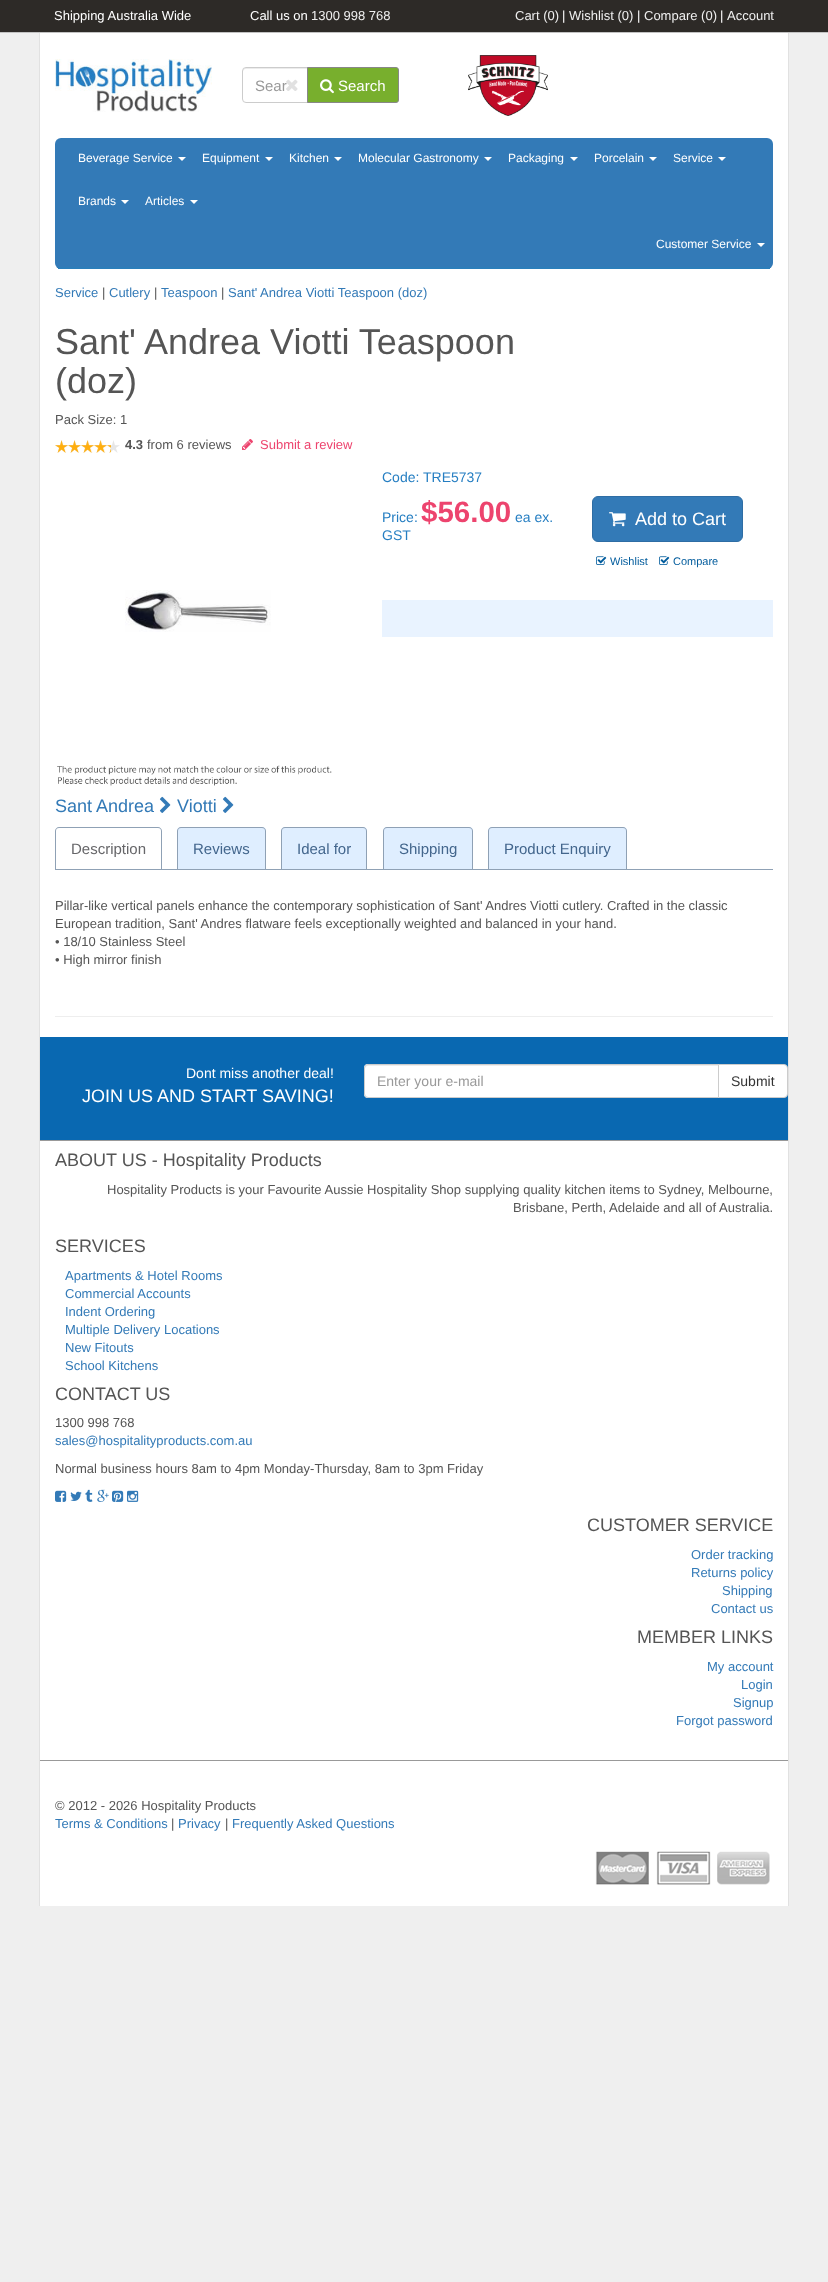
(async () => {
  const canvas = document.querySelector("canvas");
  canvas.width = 828;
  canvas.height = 2282;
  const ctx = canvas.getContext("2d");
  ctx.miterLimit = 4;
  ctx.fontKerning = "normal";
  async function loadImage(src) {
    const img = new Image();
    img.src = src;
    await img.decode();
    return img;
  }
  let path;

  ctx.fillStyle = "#efefef";
  ctx.fillRect(0, 0, 828, 2282);
  for (const [x, y, w, h, color] of [
    [0, 0, 828, 32, "#2d2a27"],
    [0, 32, 828, 1, "#c2c2c2"],
    [40, 33, 748, 1873, "#ffffff"],
    [788, 33, 1, 1873, "#e1e1e1"],
    [39, 33, 1, 1873, "#e1e1e1"],
  ]) {
    ctx.fillStyle = color;
    ctx.fillRect(x, y, w, h);
  }
  ctx.drawImage(await loadImage("img/1.png"), 55, 59, 157, 53);
  ctx.fillStyle = "#ececec";
  path = new Path2D("M246 69H307V68H246C244 68 243 69 243 71V72C243 70 244 69 246 69Z");
  ctx.fill(path);
  ctx.beginPath();
  ctx.roundRect(242.5, 67.5, 65, 35, [3.5, 0, 0, 3.5]);
  ctx.strokeStyle = "#cccccc";
  ctx.stroke();
  ctx.fillStyle = "#78af2d";
  ctx.beginPath();
  ctx.roundRect(307.5, 67.5, 91, 35, [0, 2.5, 2.5, 0]);
  ctx.fill();
  ctx.strokeStyle = "#888888";
  ctx.stroke();
  ctx.drawImage(await loadImage("img/3.png"), 320, 79, 14, 15);
  ctx.drawImage(await loadImage("img/4.png"), 468, 55, 80, 61);
  ctx.fillStyle = "#337ab7";
  ctx.beginPath();
  ctx.roundRect(55, 138, 718, 131, 6);
  ctx.fill();
  ctx.fillStyle = "#2c7eba";
  ctx.fillRect(58, 267, 712, 2);
  ctx.fillStyle = "#ffffff";
  path = new Path2D("M178 157H186L182 161Z");
  ctx.fill(path);
  path = new Path2D("M265 157H273L269 161Z");
  ctx.fill(path);
  path = new Path2D("M334 157H342L338 161Z");
  ctx.fill(path);
  path = new Path2D("M484 157H492L488 161Z");
  ctx.fill(path);
  path = new Path2D("M570 157H578L574 161Z");
  ctx.fill(path);
  path = new Path2D("M649 157H657L653 161Z");
  ctx.fill(path);
  path = new Path2D("M718 157H726L722 161Z");
  ctx.fill(path);
  path = new Path2D("M121 200H129L125 204Z");
  ctx.fill(path);
  path = new Path2D("M190 200H198L194 204Z");
  ctx.fill(path);
  path = new Path2D("M757 243H765L761 247Z");
  ctx.fill(path);
  ctx.drawImage(await loadImage("img/5.png"), 55, 440, 65, 13);
  ctx.drawImage(await loadImage("img/6.png"), 55, 440, 56, 13);
  ctx.drawImage(await loadImage("img/7.png"), 242, 439, 11, 11);
  ctx.fillStyle = "#337ab7";
  ctx.beginPath();
  ctx.roundRect(592.5, 496.5, 150, 45, 5.5);
  ctx.fill();
  ctx.strokeStyle = "#2e6da4";
  ctx.stroke();
  ctx.drawImage(await loadImage("img/8.png"), 609, 512, 17, 15);
  ctx.drawImage(await loadImage("img/9.png"), 596, 556, 11, 9);
  ctx.drawImage(await loadImage("img/9.png"), 659, 556, 11, 9);
  ctx.fillStyle = "#e9f3ff";
  ctx.fillRect(382, 600, 391, 37);
  ctx.drawImage(await loadImage("img/10.png"), 125, 590, 146, 42);
  ctx.drawImage(await loadImage("img/11.png"), 57, 765, 275, 21);
  ctx.drawImage(await loadImage("img/12.png"), 159, 796, 12, 17);
  ctx.drawImage(await loadImage("img/12.png"), 222, 796, 12, 17);
  ctx.fillStyle = "#8fa1b5";
  ctx.fillRect(55, 869, 718, 1);
  path = new Path2D("M59 827H158C160 827 162 829 162 831V869H55V831C55 829 57 827 59 827ZM59 828H158C160 828 161 829 161 831V869H56V831C56 829 57 828 59 828Z");
  ctx.fill(path, "evenodd");
  ctx.fillStyle = "#dfeeff";
  ctx.beginPath();
  ctx.roundRect(177, 827, 89, 42, [4, 4, 0, 0]);
  ctx.fill();
  ctx.fillStyle = "#8fa1b5";
  path = new Path2D("M181 827H262C264 827 266 829 266 831V869H177V831C177 829 179 827 181 827ZM181 828H262C264 828 265 829 265 831V869H178V831C178 829 179 828 181 828Z");
  ctx.fill(path, "evenodd");
  ctx.fillStyle = "#dfeeff";
  ctx.beginPath();
  ctx.roundRect(281, 827, 86, 42, [4, 4, 0, 0]);
  ctx.fill();
  ctx.fillStyle = "#8fa1b5";
  path = new Path2D("M285 827H363C365 827 367 829 367 831V869H281V831C281 829 283 827 285 827ZM285 828H363C365 828 366 829 366 831V869H282V831C282 829 283 828 285 828Z");
  ctx.fill(path, "evenodd");
  ctx.fillStyle = "#dfeeff";
  ctx.beginPath();
  ctx.roundRect(383, 827, 90, 42, [4, 4, 0, 0]);
  ctx.fill();
  ctx.fillStyle = "#8fa1b5";
  path = new Path2D("M387 827H469C471 827 473 829 473 831V869H383V831C383 829 385 827 387 827ZM387 828H469C471 828 472 829 472 831V869H384V831C384 829 385 828 387 828Z");
  ctx.fill(path, "evenodd");
  ctx.fillStyle = "#dfeeff";
  ctx.beginPath();
  ctx.roundRect(488, 827, 139, 42, [4, 4, 0, 0]);
  ctx.fill();
  ctx.fillStyle = "#8fa1b5";
  path = new Path2D("M492 827H623C625 827 627 829 627 831V869H488V831C488 829 490 827 492 827ZM492 828H623C625 828 626 829 626 831V869H489V831C489 829 490 828 492 828Z");
  ctx.fill(path, "evenodd");
  ctx.fillStyle = "#eeeeee";
  ctx.fillRect(55, 1016, 718, 1);
  ctx.fillStyle = "#0968b1";
  ctx.fillRect(40, 1037, 748, 103);
  ctx.fillStyle = "#ffffff";
  ctx.beginPath();
  ctx.roundRect(364, 1064, 355, 34, [4, 0, 0, 4]);
  ctx.fill();
  ctx.fillStyle = "#ececec";
  path = new Path2D("M368 1066H718V1065H368C366 1065 365 1066 365 1068V1069C365 1067 366 1066 368 1066Z");
  ctx.fill(path);
  ctx.beginPath();
  ctx.roundRect(364.5, 1064.5, 354, 33, [3.5, 0, 0, 3.5]);
  ctx.strokeStyle = "#cccccc";
  ctx.stroke();
  ctx.fillStyle = "#ffffff";
  ctx.beginPath();
  ctx.roundRect(718.5, 1064.5, 69, 33, [0, 3.5, 3.5, 0]);
  ctx.fill();
  ctx.stroke();
  ctx.fillStyle = "#999999";
  ctx.fillRect(40, 1140, 748, 1);
  ctx.drawImage(await loadImage("img/13.png"), 55, 1490, 12, 12);
  ctx.drawImage(await loadImage("img/14.png"), 70, 1491, 12, 10);
  ctx.drawImage(await loadImage("img/15.png"), 85, 1489, 8, 13);
  ctx.drawImage(await loadImage("img/16.png"), 97, 1489, 12, 13);
  ctx.drawImage(await loadImage("img/17.png"), 112, 1490, 12, 12);
  ctx.drawImage(await loadImage("img/18.png"), 127, 1490, 12, 12);
  ctx.fillRect(40, 1760, 748, 1);
  ctx.drawImage(await loadImage("img/19.png"), 595, 1851, 175, 34);
  ctx.font = "13px Liberation Sans";
  ctx.fillStyle = "#ffffff";
  ctx.fillText("Shipping Australia Wide", 54, 20);
  ctx.fillText("Call us on", 250, 20);
  ctx.fillStyle = "#efefef";
  ctx.fillText("1300 998 768", 311, 20);
  ctx.fillText("Cart (0)", 515, 20);
  ctx.fillStyle = "#ffffff";
  ctx.fillText("|", 562, 20);
  ctx.fillStyle = "#efefef";
  ctx.fillText("Wishlist (0)", 569, 20);
  ctx.fillStyle = "#ffffff";
  ctx.fillText("|", 637, 20);
  ctx.fillStyle = "#efefef";
  ctx.fillText("Compare (0)", 644, 20);
  ctx.fillStyle = "#ffffff";
  ctx.fillText("|", 720, 20);
  ctx.fillStyle = "#efefef";
  ctx.fillText("Account", 727, 20);
  ctx.font = "15px Liberation Sans";
  ctx.fillStyle = "#999999";
  ctx.fillText("Sear", 255, 91);
  ctx.drawImage(await loadImage("img/2.png"), 286, 79, 12, 12);
  ctx.fillStyle = "#ffffff";
  ctx.fillText("Search", 338, 91);
  ctx.font = "12px Liberation Sans";
  for (const [text, x, y] of [
    ["Beverage Service", 78, 162],
    ["Equipment", 202, 162],
    ["Kitchen", 289, 162],
    ["Molecular Gastronomy", 358, 162],
    ["Packaging", 508, 162],
    ["Porcelain", 594, 162],
    ["Service", 673, 162],
    ["Brands", 78, 205],
    ["Articles", 145, 205],
    ["Customer Service", 656, 248],
  ]) {
    ctx.fillText(text, x, y);
  }
  ctx.font = "13px Liberation Sans";
  ctx.fillStyle = "#337ab7";
  ctx.fillText("Service", 55, 297);
  ctx.fillStyle = "#555555";
  ctx.fillText("|", 102, 297);
  ctx.fillStyle = "#337ab7";
  ctx.fillText("Cutlery", 109, 297);
  ctx.fillStyle = "#555555";
  ctx.fillText("|", 154, 297);
  ctx.fillStyle = "#337ab7";
  ctx.fillText("Teaspoon", 161, 297);
  ctx.fillStyle = "#555555";
  ctx.fillText("|", 221, 297);
  ctx.fillStyle = "#337ab7";
  ctx.fillText("Sant' Andrea Viotti Teaspoon (doz)", 228, 297);
  ctx.font = "36px Liberation Sans";
  ctx.fillStyle = "#555555";
  ctx.fillText("Sant' Andrea Viotti Teaspoon", 55, 354);
  ctx.fillText("(doz)", 55, 393);
  ctx.font = "13px Liberation Sans";
  ctx.fillText("Pack Size: 1", 55, 424);
  ctx.font = "bold 13px Liberation Sans";
  ctx.fillText("4.3", 125, 449);
  ctx.font = "13px Liberation Sans";
  ctx.fillText("from 6 reviews", 147, 449);
  ctx.fillStyle = "#ed446e";
  ctx.fillText("Submit a review", 260, 449);
  ctx.font = "14px Liberation Sans";
  ctx.fillStyle = "#257ec2";
  ctx.fillText("Code: TRE5737", 382, 482);
  ctx.fillText("Price:", 382, 522);
  ctx.font = "bold 29.5px Liberation Sans";
  ctx.fillStyle = "#ed446e";
  ctx.fillText("$56.00", 421, 522);
  ctx.font = "14px Liberation Sans";
  ctx.fillStyle = "#257ec2";
  ctx.fillText("ea ex.", 515, 522);
  ctx.fillText("GST", 382, 540);
  ctx.font = "18px Liberation Sans";
  ctx.fillStyle = "#ffffff";
  ctx.fillText("Add to Cart", 635, 525);
  ctx.font = "11px Liberation Sans";
  ctx.fillStyle = "#005b9c";
  ctx.fillText("Wishlist", 610, 565);
  ctx.fillText("Compare", 673, 565);
  ctx.font = "18px Liberation Sans";
  ctx.fillStyle = "#337ab7";
  ctx.fillText("Sant Andrea", 55, 812);
  ctx.fillText("Viotti", 177, 812);
  ctx.font = "15px Liberation Sans";
  ctx.fillStyle = "#666669";
  ctx.fillText("Description", 71, 854);
  ctx.fillStyle = "#43668d";
  for (const [text, x, y] of [
    ["Reviews", 193, 854],
    ["Ideal for", 297, 854],
    ["Shipping", 399, 854],
    ["Product Enquiry", 504, 854],
  ]) {
    ctx.fillText(text, x, y);
  }
  ctx.font = "13px Liberation Sans";
  ctx.fillStyle = "#555555";
  for (const [text, x, y] of [
    ["Pillar-like vertical panels enhance the contemporary sophistication of Sant' Andres Viotti cutlery. Crafted in the classic", 55, 910],
    ["European tradition, Sant' Andres flatware feels exceptionally weighted and balanced in your hand.", 55, 928],
    ["• 18/10 Stainless Steel", 55, 946],
    ["• High mirror finish", 55, 964],
  ]) {
    ctx.fillText(text, x, y);
  }
  ctx.font = "14px Liberation Sans";
  ctx.fillStyle = "#ffffff";
  ctx.fillText("Dont miss another deal!", 186, 1078);
  ctx.font = "18px Liberation Sans";
  ctx.fillText("JOIN US AND START SAVING!", 82, 1102);
  ctx.font = "14px Liberation Sans";
  ctx.fillStyle = "#999999";
  ctx.fillText("Enter your e-mail", 377, 1086);
  ctx.fillStyle = "#333333";
  ctx.fillText("Submit", 731, 1086);
  ctx.font = "18px Liberation Sans";
  ctx.fillStyle = "#555555";
  ctx.fillText("ABOUT US - Hospitality Products", 55, 1166);
  ctx.font = "13px Liberation Sans";
  ctx.fillText("Hospitality Products is your Favourite Aussie Hospitality Shop supplying quality kitchen items to Sydney, Melbourne,", 107, 1194);
  ctx.fillText("Brisbane, Perth, Adelaide and all of Australia.", 513, 1212);
  ctx.font = "18px Liberation Sans";
  ctx.fillText("SERVICES", 55, 1252);
  ctx.font = "13px Liberation Sans";
  ctx.fillStyle = "#337ab7";
  for (const [text, x, y] of [
    ["Apartments & Hotel Rooms", 65, 1280],
    ["Commercial Accounts", 65, 1298],
    ["Indent Ordering", 65, 1316],
    ["Multiple Delivery Locations", 65, 1334],
    ["New Fitouts", 65, 1352],
    ["School Kitchens", 65, 1370],
  ]) {
    ctx.fillText(text, x, y);
  }
  ctx.font = "18px Liberation Sans";
  ctx.fillStyle = "#555555";
  ctx.fillText("CONTACT US", 55, 1400);
  ctx.font = "13px Liberation Sans";
  ctx.fillText("1300 998 768", 55, 1427);
  ctx.fillStyle = "#337ab7";
  ctx.fillText("sales@hospitalityproducts.com.au", 55, 1445);
  ctx.fillStyle = "#555555";
  ctx.fillText("Normal business hours 8am to 4pm Monday-Thursday, 8am to 3pm Friday", 55, 1473);
  ctx.font = "18px Liberation Sans";
  ctx.fillText("CUSTOMER SERVICE", 587, 1531);
  ctx.font = "13px Liberation Sans";
  ctx.fillStyle = "#337ab7";
  for (const [text, x, y] of [
    ["Order tracking", 691, 1559],
    ["Returns policy", 691, 1577],
    ["Shipping", 722, 1595],
    ["Contact us", 711, 1613],
  ]) {
    ctx.fillText(text, x, y);
  }
  ctx.font = "18px Liberation Sans";
  ctx.fillStyle = "#555555";
  ctx.fillText("MEMBER LINKS", 637, 1643);
  ctx.font = "13px Liberation Sans";
  ctx.fillStyle = "#337ab7";
  for (const [text, x, y] of [
    ["My account", 707, 1671],
    ["Login", 741, 1689],
    ["Signup", 733, 1707],
    ["Forgot password", 676, 1725],
  ]) {
    ctx.fillText(text, x, y);
  }
  ctx.fillStyle = "#555555";
  ctx.fillText("© 2012 - 2026 Hospitality Products", 55, 1810);
  ctx.fillStyle = "#337ab7";
  ctx.fillText("Terms & Conditions", 55, 1828);
  ctx.fillStyle = "#555555";
  ctx.fillText("|", 171, 1828);
  ctx.fillStyle = "#337ab7";
  ctx.fillText("Privacy", 178, 1828);
  ctx.fillStyle = "#555555";
  ctx.fillText("|", 225, 1828);
  ctx.fillStyle = "#337ab7";
  ctx.fillText("Frequently Asked Questions", 232, 1828);
})();
